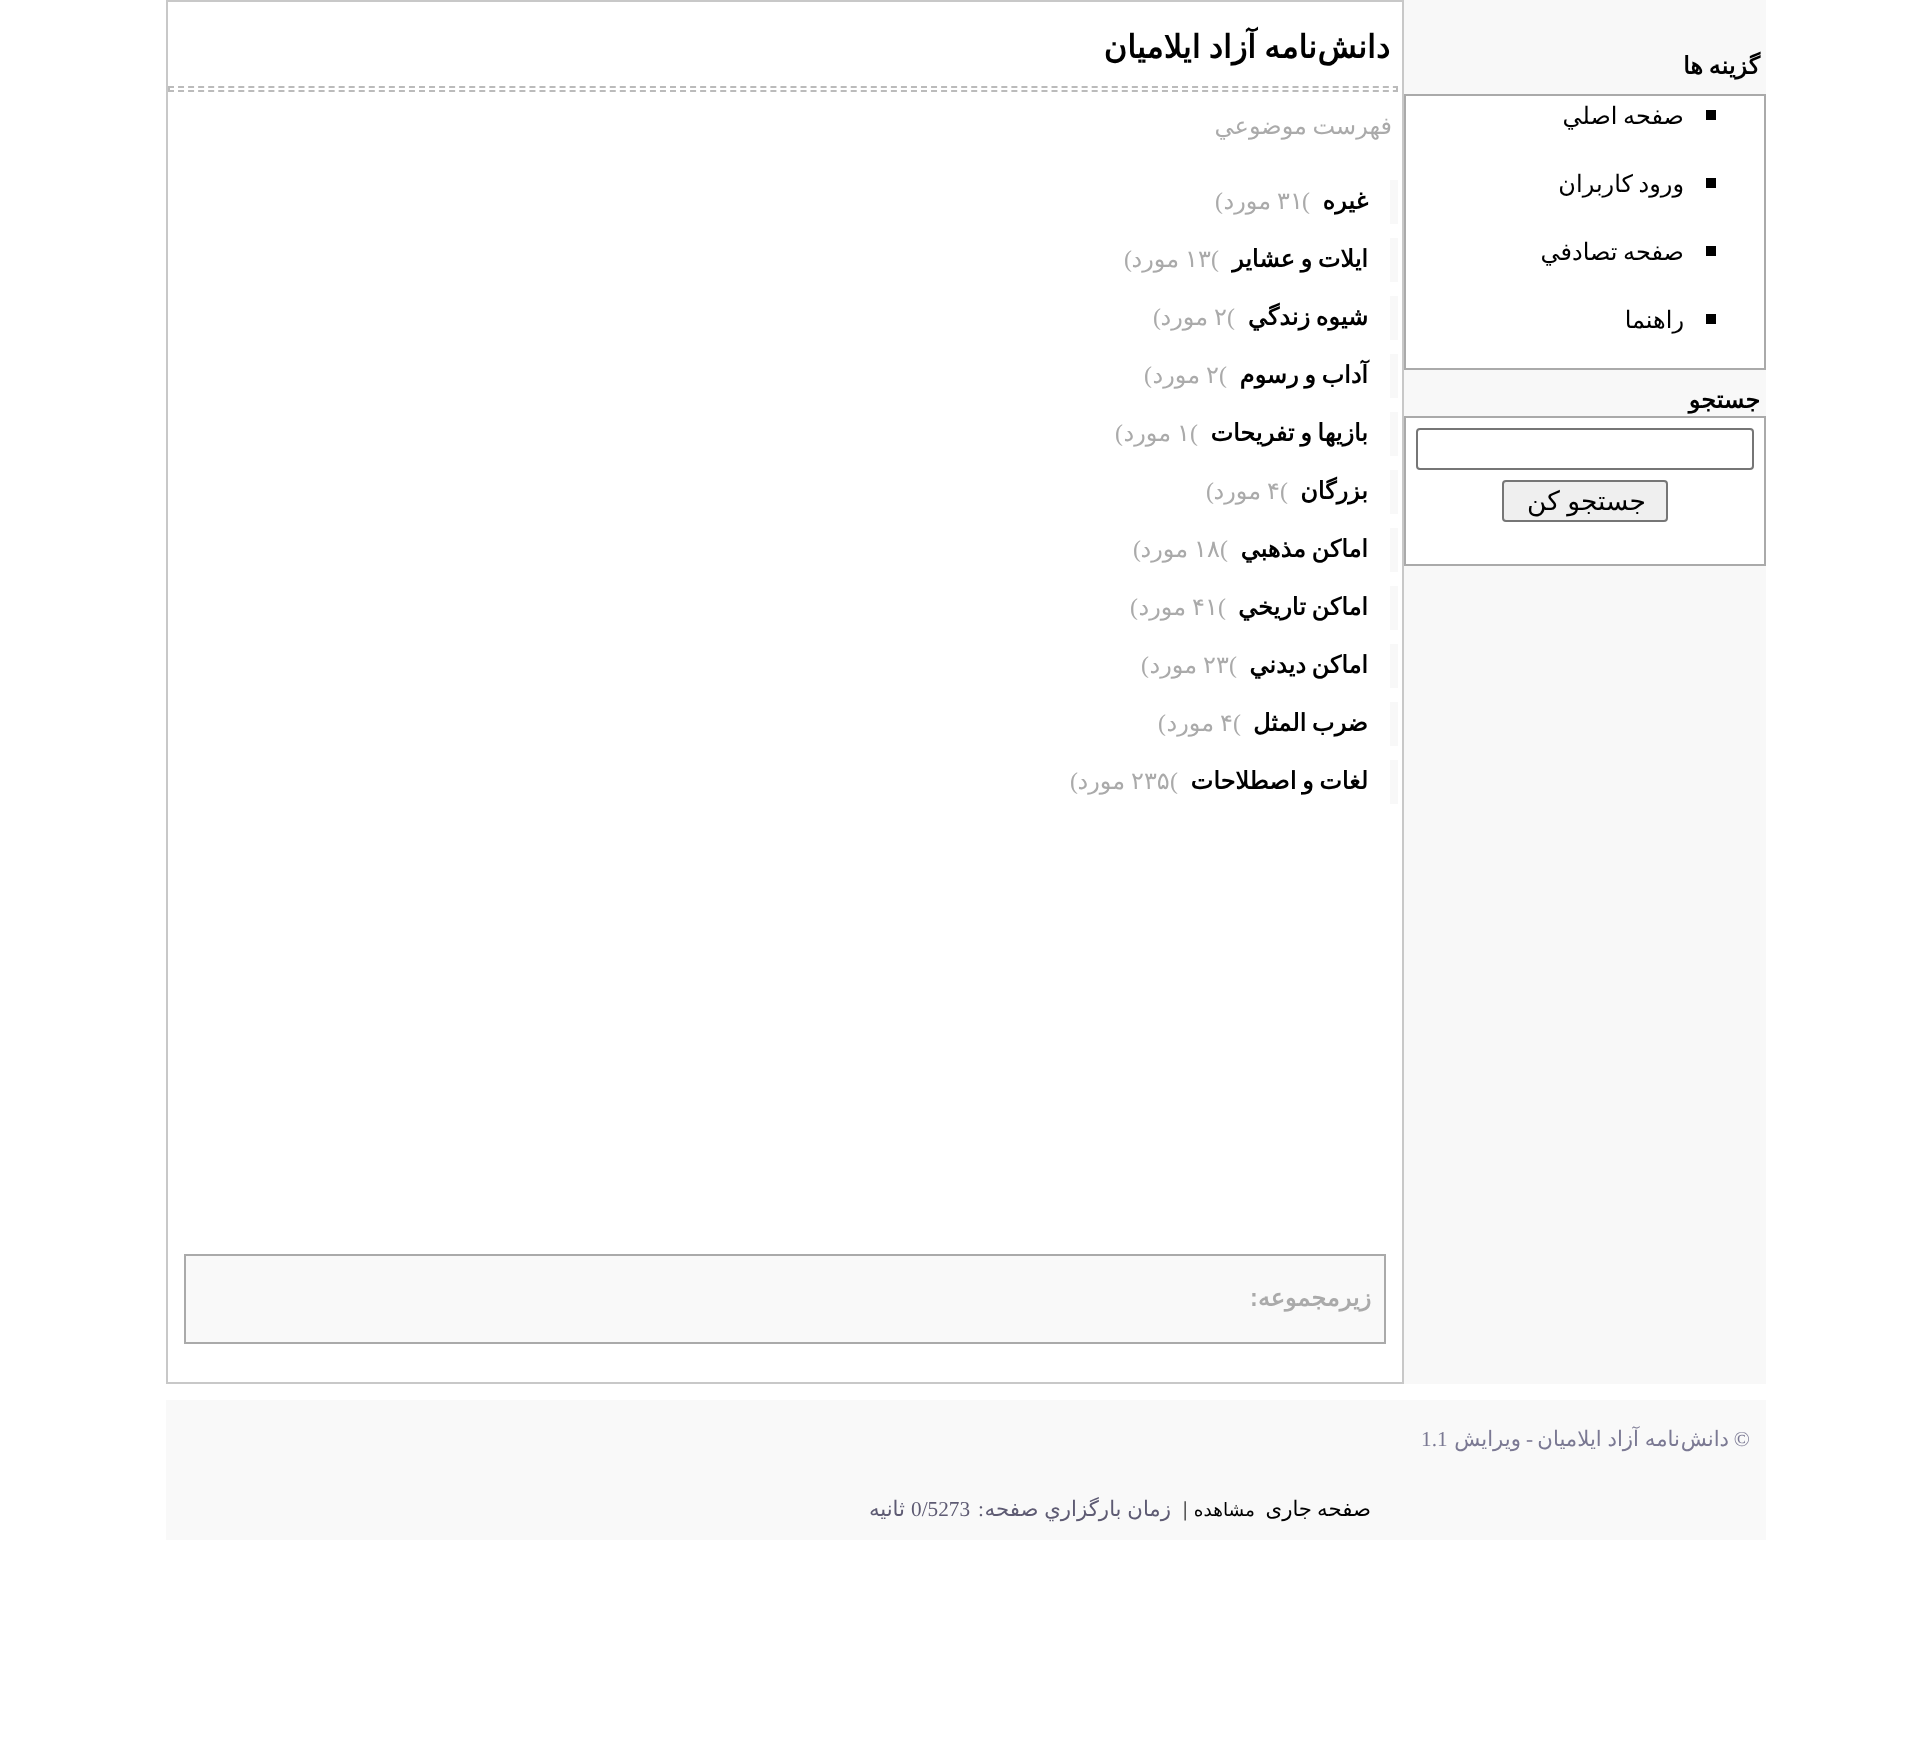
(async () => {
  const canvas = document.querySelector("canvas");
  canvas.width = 1932;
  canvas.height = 1746;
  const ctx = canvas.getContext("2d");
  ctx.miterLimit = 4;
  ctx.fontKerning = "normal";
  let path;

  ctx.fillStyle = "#ffffff";
  ctx.fillRect(0, 0, 1932, 1746);
  for (const [x, y, w, h, color] of [
    [1404, 0, 362, 1384, "#f8f8f8"],
    [1406, 96, 358, 272, "#ffffff"],
    [1404, 94, 362, 2, "#aaaaaa"],
    [1764, 94, 2, 276, "#aaaaaa"],
    [1404, 368, 362, 2, "#aaaaaa"],
    [1404, 94, 2, 276, "#aaaaaa"],
    [1706, 110, 10, 10, "#000000"],
    [1706, 178, 10, 10, "#000000"],
    [1706, 246, 10, 10, "#000000"],
    [1706, 314, 10, 10, "#000000"],
    [1406, 418, 358, 146, "#ffffff"],
    [1404, 416, 362, 2, "#aaaaaa"],
    [1764, 416, 2, 150, "#aaaaaa"],
    [1404, 564, 362, 2, "#aaaaaa"],
    [1404, 416, 2, 150, "#aaaaaa"],
  ]) {
    ctx.fillStyle = color;
    ctx.fillRect(x, y, w, h);
  }
  ctx.beginPath();
  ctx.roundRect(1417, 429, 336, 40, 3);
  ctx.strokeStyle = "#767676";
  ctx.lineWidth = 2;
  ctx.stroke();
  ctx.fillStyle = "#efefef";
  ctx.beginPath();
  ctx.roundRect(1503, 481, 164, 40, 3);
  ctx.fill();
  ctx.stroke();
  for (const [x, y, w, h, color] of [
    [166, 0, 1238, 2, "#c8c8c8"],
    [1402, 0, 2, 1384, "#c8c8c8"],
    [166, 1382, 1238, 2, "#c8c8c8"],
    [166, 0, 2, 1384, "#c8c8c8"],
  ]) {
    ctx.fillStyle = color;
    ctx.fillRect(x, y, w, h);
  }
  path = new Path2D("M168 87H1398");
  ctx.strokeStyle = "#bbbbbb";
  ctx.setLineDash([6, 4.04]);
  ctx.stroke(path);
  ctx.fillStyle = "#bbbbbb";
  ctx.fillRect(1396, 86, 2, 6);
  path = new Path2D("M168 91H1398");
  ctx.stroke(path);
  for (const [x, y, w, h, color] of [
    [168, 86, 2, 6, "#bbbbbb"],
    [1390, 180, 8, 44, "#f8f8f8"],
    [1390, 238, 8, 44, "#f8f8f8"],
    [1390, 296, 8, 44, "#f8f8f8"],
    [1390, 354, 8, 44, "#f8f8f8"],
    [1390, 412, 8, 44, "#f8f8f8"],
    [1390, 470, 8, 44, "#f8f8f8"],
    [1390, 528, 8, 44, "#f8f8f8"],
    [1390, 586, 8, 44, "#f8f8f8"],
    [1390, 644, 8, 44, "#f8f8f8"],
    [1390, 702, 8, 44, "#f8f8f8"],
    [1390, 760, 8, 44, "#f8f8f8"],
    [186, 1256, 1198, 86, "#f9f9f9"],
    [184, 1254, 1202, 2, "#aaaaaa"],
    [1384, 1254, 2, 90, "#aaaaaa"],
    [184, 1342, 1202, 2, "#aaaaaa"],
    [184, 1254, 2, 90, "#aaaaaa"],
    [166, 1400, 1600, 140, "#f9f9f9"],
  ]) {
    ctx.fillStyle = color;
    ctx.fillRect(x, y, w, h);
  }
  ctx.direction = "rtl";
  ctx.font = "bold 24px DejaVu Sans";
  ctx.fillStyle = "#000000";
  ctx.fillText("گزينه", 1760, 74);
  ctx.fillText("ها", 1703, 74);
  ctx.wordSpacing = "-2px";
  ctx.font = "24px DejaVu Sans";
  for (const [text, x, y] of [
    ["صفحه اصلي", 1684, 124],
    ["ورود كاربران", 1684, 192],
    ["صفحه تصادفي", 1684, 260],
  ]) {
    ctx.fillText(text, x, y);
  }
  ctx.wordSpacing = "0px";
  ctx.fillText("راهنما", 1684, 328);
  ctx.font = "bold 24px DejaVu Sans";
  ctx.fillText("جستجو", 1760, 408);
  ctx.wordSpacing = "-1px";
  ctx.font = "26.5px DejaVu Sans";
  ctx.fillText("جستجو كن", 1646, 510);
  ctx.wordSpacing = "0px";
  ctx.font = "bold 32px DejaVu Sans";
  ctx.fillText("دانش", 1390, 58);
  ctx.fillText("نامه", 1317, 58);
  ctx.wordSpacing = "-2px";
  ctx.fillText("آزاد ايلاميان", 1256, 58);
  ctx.font = "24px DejaVu Sans";
  ctx.fillStyle = "#aaaaaa";
  ctx.fillText("فهرست موضوعي", 1392, 134);
  ctx.wordSpacing = "0px";
  ctx.font = "bold 24px DejaVu Sans";
  ctx.fillStyle = "#000000";
  ctx.fillText("غيره", 1368, 209);
  ctx.direction = "ltr";
  ctx.font = "24px Liberation Serif";
  ctx.fillStyle = "#aaaaaa";
  ctx.fillText("(", 1302, 209);
  ctx.font = "24px DejaVu Sans";
  ctx.fillText("۳۱", 1277, 209);
  ctx.direction = "rtl";
  ctx.fillText("مورد", 1271, 209);
  ctx.font = "24px Liberation Serif";
  ctx.fillText(")", 1223, 209);
  ctx.wordSpacing = "-2px";
  ctx.font = "bold 24px DejaVu Sans";
  ctx.fillStyle = "#000000";
  ctx.fillText("ايلات و عشاير", 1368, 267);
  ctx.wordSpacing = "0px";
  ctx.direction = "ltr";
  ctx.font = "24px Liberation Serif";
  ctx.fillStyle = "#aaaaaa";
  ctx.fillText("(", 1211, 267);
  ctx.font = "24px DejaVu Sans";
  ctx.fillText("۱۳", 1185, 267);
  ctx.direction = "rtl";
  ctx.fillText("مورد", 1179, 267);
  ctx.font = "24px Liberation Serif";
  ctx.fillText(")", 1132, 267);
  ctx.wordSpacing = "-2px";
  ctx.font = "bold 24px DejaVu Sans";
  ctx.fillStyle = "#000000";
  ctx.fillText("شيوه زندگي", 1368, 325);
  ctx.wordSpacing = "0px";
  ctx.direction = "ltr";
  ctx.font = "24px Liberation Serif";
  ctx.fillStyle = "#aaaaaa";
  ctx.fillText("(", 1227, 325);
  ctx.font = "24px DejaVu Sans";
  ctx.fillText("۲", 1214, 325);
  ctx.direction = "rtl";
  ctx.fillText("مورد", 1208, 325);
  ctx.font = "24px Liberation Serif";
  ctx.fillText(")", 1161, 325);
  ctx.wordSpacing = "-2px";
  ctx.font = "bold 24px DejaVu Sans";
  ctx.fillStyle = "#000000";
  ctx.fillText("آداب و رسوم", 1368, 383);
  ctx.wordSpacing = "0px";
  ctx.direction = "ltr";
  ctx.font = "24px Liberation Serif";
  ctx.fillStyle = "#aaaaaa";
  ctx.fillText("(", 1219, 383);
  ctx.font = "24px DejaVu Sans";
  ctx.fillText("۲", 1206, 383);
  ctx.direction = "rtl";
  ctx.fillText("مورد", 1200, 383);
  ctx.font = "24px Liberation Serif";
  ctx.fillText(")", 1152, 383);
  ctx.wordSpacing = "-2px";
  ctx.font = "bold 24px DejaVu Sans";
  ctx.fillStyle = "#000000";
  ctx.fillText("بازيها و تفريحات", 1368, 441);
  ctx.wordSpacing = "0px";
  ctx.direction = "ltr";
  ctx.font = "24px Liberation Serif";
  ctx.fillStyle = "#aaaaaa";
  ctx.fillText("(", 1190, 441);
  ctx.font = "24px DejaVu Sans";
  ctx.fillText("۱", 1177, 441);
  ctx.direction = "rtl";
  ctx.fillText("مورد", 1171, 441);
  ctx.font = "24px Liberation Serif";
  ctx.fillText(")", 1123, 441);
  ctx.font = "bold 24px DejaVu Sans";
  ctx.fillStyle = "#000000";
  ctx.fillText("بزرگان", 1368, 499);
  ctx.direction = "ltr";
  ctx.font = "24px Liberation Serif";
  ctx.fillStyle = "#aaaaaa";
  ctx.fillText("(", 1280, 499);
  ctx.font = "24px DejaVu Sans";
  ctx.fillText("۴", 1267, 499);
  ctx.direction = "rtl";
  ctx.fillText("مورد", 1261, 499);
  ctx.font = "24px Liberation Serif";
  ctx.fillText(")", 1214, 499);
  ctx.wordSpacing = "-2px";
  ctx.font = "bold 24px DejaVu Sans";
  ctx.fillStyle = "#000000";
  ctx.fillText("اماكن مذهبي", 1368, 557);
  ctx.wordSpacing = "0px";
  ctx.direction = "ltr";
  ctx.font = "24px Liberation Serif";
  ctx.fillStyle = "#aaaaaa";
  ctx.fillText("(", 1220, 557);
  ctx.font = "24px DejaVu Sans";
  ctx.fillText("۱۸", 1194, 557);
  ctx.direction = "rtl";
  ctx.fillText("مورد", 1188, 557);
  ctx.font = "24px Liberation Serif";
  ctx.fillText(")", 1141, 557);
  ctx.wordSpacing = "-2px";
  ctx.font = "bold 24px DejaVu Sans";
  ctx.fillStyle = "#000000";
  ctx.fillText("اماكن تاريخي", 1368, 615);
  ctx.wordSpacing = "0px";
  ctx.direction = "ltr";
  ctx.font = "24px Liberation Serif";
  ctx.fillStyle = "#aaaaaa";
  ctx.fillText("(", 1218, 615);
  ctx.font = "24px DejaVu Sans";
  ctx.fillText("۴۱", 1192, 615);
  ctx.direction = "rtl";
  ctx.fillText("مورد", 1186, 615);
  ctx.font = "24px Liberation Serif";
  ctx.fillText(")", 1138, 615);
  ctx.wordSpacing = "-2px";
  ctx.font = "bold 24px DejaVu Sans";
  ctx.fillStyle = "#000000";
  ctx.fillText("اماكن ديدني", 1368, 673);
  ctx.wordSpacing = "0px";
  ctx.direction = "ltr";
  ctx.font = "24px Liberation Serif";
  ctx.fillStyle = "#aaaaaa";
  ctx.fillText("(", 1229, 673);
  ctx.font = "24px DejaVu Sans";
  ctx.fillText("۲۳", 1203, 673);
  ctx.direction = "rtl";
  ctx.fillText("مورد", 1197, 673);
  ctx.font = "24px Liberation Serif";
  ctx.fillText(")", 1149, 673);
  ctx.wordSpacing = "-2px";
  ctx.font = "bold 24px DejaVu Sans";
  ctx.fillStyle = "#000000";
  ctx.fillText("ضرب المثل", 1368, 731);
  ctx.wordSpacing = "0px";
  ctx.direction = "ltr";
  ctx.font = "24px Liberation Serif";
  ctx.fillStyle = "#aaaaaa";
  ctx.fillText("(", 1233, 731);
  ctx.font = "24px DejaVu Sans";
  ctx.fillText("۴", 1220, 731);
  ctx.direction = "rtl";
  ctx.fillText("مورد", 1214, 731);
  ctx.font = "24px Liberation Serif";
  ctx.fillText(")", 1166, 731);
  ctx.wordSpacing = "-2px";
  ctx.font = "bold 24px DejaVu Sans";
  ctx.fillStyle = "#000000";
  ctx.fillText("لغات و اصطلاحات", 1368, 789);
  ctx.wordSpacing = "0px";
  ctx.direction = "ltr";
  ctx.font = "24px Liberation Serif";
  ctx.fillStyle = "#aaaaaa";
  ctx.fillText("(", 1170, 789);
  ctx.font = "24px DejaVu Sans";
  ctx.fillText("۲۳۵", 1131, 789);
  ctx.direction = "rtl";
  ctx.fillText("مورد", 1125, 789);
  ctx.font = "24px Liberation Serif";
  ctx.fillText(")", 1078, 789);
  ctx.font = "bold 24px DejaVu Sans";
  ctx.fillText("زيرمجموعه:", 1371, 1306);
  ctx.font = "21.25px Liberation Serif";
  ctx.fillStyle = "#7b7993";
  ctx.fillText("©", 1750, 1446);
  ctx.font = "21.25px DejaVu Sans";
  ctx.fillText("دانش", 1729, 1446);
  ctx.fillText("نامه", 1680, 1446);
  ctx.wordSpacing = "-1px";
  ctx.fillText("آزاد ايلاميان", 1639, 1446);
  ctx.wordSpacing = "0px";
  ctx.font = "21.25px Liberation Serif";
  ctx.fillText("-", 1533, 1446);
  ctx.font = "21.25px DejaVu Sans";
  ctx.fillText("ويرايش", 1521, 1446);
  ctx.direction = "ltr";
  ctx.font = "21.25px Liberation Serif";
  ctx.fillText("1.1", 1421, 1446);
  ctx.direction = "rtl";
  ctx.font = "21.25px DejaVu Sans";
  ctx.fillStyle = "#000000";
  ctx.fillText("صفحه", 1371, 1516);
  ctx.fillText("جاری", 1312, 1516);
  ctx.font = "18.5px DejaVu Sans";
  ctx.fillText("مشاهده", 1255, 1516);
  ctx.direction = "ltr";
  ctx.font = "21.25px Liberation Serif";
  ctx.fillText("|", 1183, 1516);
  ctx.wordSpacing = "-1px";
  ctx.direction = "rtl";
  ctx.font = "21.25px DejaVu Sans";
  ctx.fillStyle = "#5e5b73";
  ctx.fillText("زمان بارگزاري صفحه", 1171, 1516);
  ctx.wordSpacing = "0px";
  ctx.font = "21.25px Liberation Serif";
  ctx.fillText(":", 984, 1516);
  ctx.direction = "ltr";
  ctx.fillText("0/5273", 911, 1516);
  ctx.direction = "rtl";
  ctx.font = "21.25px DejaVu Sans";
  ctx.fillText("ثانيه", 905, 1516);
})();
